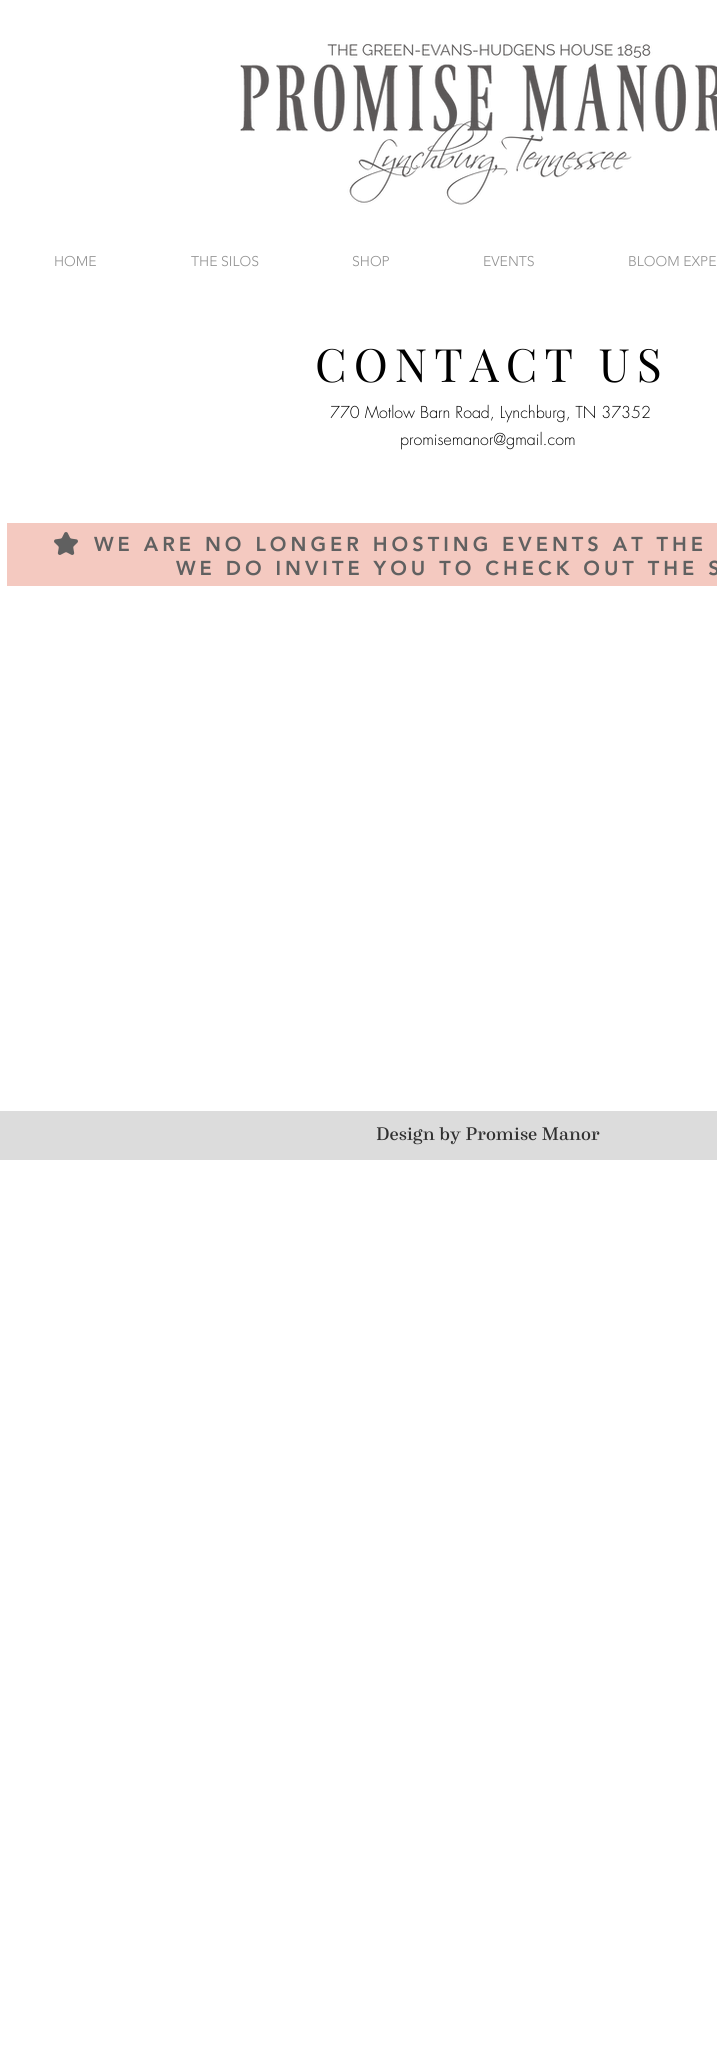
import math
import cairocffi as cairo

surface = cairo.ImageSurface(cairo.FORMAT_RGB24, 717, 2056)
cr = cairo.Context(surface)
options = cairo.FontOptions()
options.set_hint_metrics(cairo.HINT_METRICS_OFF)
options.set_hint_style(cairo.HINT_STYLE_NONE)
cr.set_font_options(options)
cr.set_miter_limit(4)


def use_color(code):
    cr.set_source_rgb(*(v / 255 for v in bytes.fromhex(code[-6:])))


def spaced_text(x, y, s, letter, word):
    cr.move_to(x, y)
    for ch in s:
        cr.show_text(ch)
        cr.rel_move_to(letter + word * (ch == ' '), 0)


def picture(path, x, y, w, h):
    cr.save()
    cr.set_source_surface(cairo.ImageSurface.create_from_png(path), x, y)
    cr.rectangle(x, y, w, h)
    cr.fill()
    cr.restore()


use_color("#ffffff")
cr.paint()
picture("img1.png", 240, 43, 477, 162)
cr.select_font_face("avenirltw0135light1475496 Light")
cr.set_font_size(14)
use_color("#909090")
cr.move_to(54, 266)
cr.show_text("HOME")
cr.move_to(191, 266)
cr.show_text("THE SILOS")
cr.move_to(352, 266)
cr.show_text("SHOP")
cr.move_to(483, 266)
cr.show_text("EVENTS")
cr.move_to(628, 266)
cr.show_text("BLOOM EXPE")
cr.select_font_face("Playfair Display")
cr.set_font_size(46)
use_color("#000000")
spaced_text(315, 382, "CONTACT US", 7, 0)
cr.select_font_face("futura Light")
cr.set_font_size(16)
cr.move_to(330, 418)
cr.show_text("770 Motlow Barn Road, Lynchburg, TN 37352")
cr.move_to(400, 445)
cr.show_text("promisemanor@gmail.com")
use_color("#f4c9c0")
cr.rectangle(7, 523, 710, 63)
cr.fill()
picture("img2.png", 54, 532, 24, 23)
cr.select_font_face("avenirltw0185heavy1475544 Black")
cr.set_font_size(20)
use_color("#606060")
spaced_text(94, 551, "WE ARE NO LONGER HOSTING EVENTS AT THE", 4, 0)
spaced_text(176, 575, "WE DO INVITE YOU TO CHECK OUT THE S", 4, 0)
use_color("#dcdcdc")
cr.rectangle(0, 1111, 717, 49)
cr.fill()
cr.select_font_face("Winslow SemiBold")
cr.set_font_size(19)
use_color("#303030")
cr.move_to(376, 1140)
cr.show_text("Design by Promise Manor")
surface.write_to_png("result.png")
